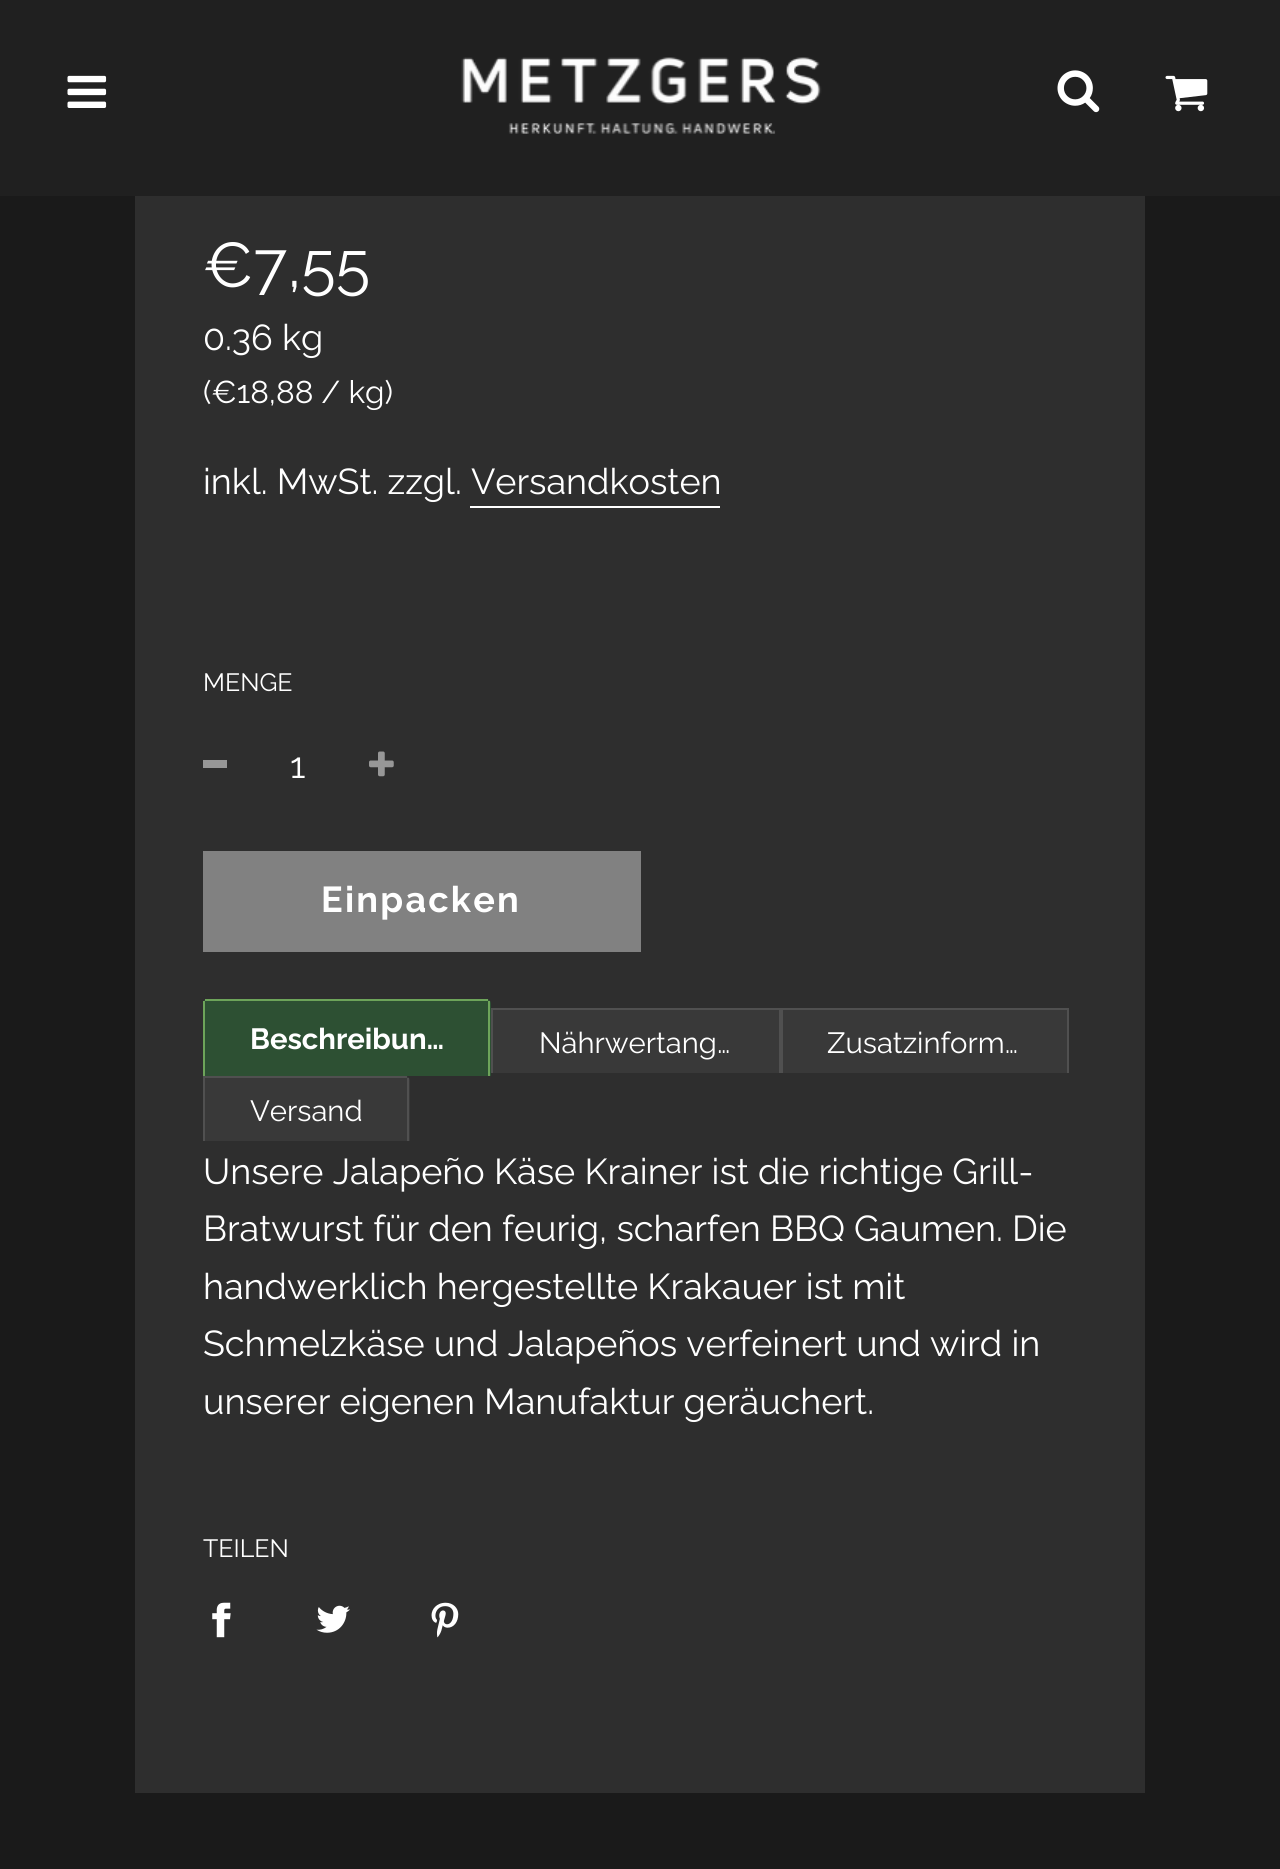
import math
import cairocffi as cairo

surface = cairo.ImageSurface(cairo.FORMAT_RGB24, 1280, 1869)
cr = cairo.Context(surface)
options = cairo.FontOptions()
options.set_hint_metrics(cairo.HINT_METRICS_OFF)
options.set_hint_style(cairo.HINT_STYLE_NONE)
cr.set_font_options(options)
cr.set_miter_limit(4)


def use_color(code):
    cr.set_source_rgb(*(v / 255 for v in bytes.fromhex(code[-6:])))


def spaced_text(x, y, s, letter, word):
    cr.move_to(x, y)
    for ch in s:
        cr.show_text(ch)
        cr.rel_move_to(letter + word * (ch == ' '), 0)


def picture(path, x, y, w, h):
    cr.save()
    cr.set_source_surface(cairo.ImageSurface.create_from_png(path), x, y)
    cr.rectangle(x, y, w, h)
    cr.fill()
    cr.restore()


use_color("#1a1a1a")
cr.paint()
use_color("#202020")
cr.rectangle(0, 0, 1280, 196)
cr.fill()
picture("img1.png", 67, 75, 40, 33)
picture("img2.png", 461, 57, 361, 77)
picture("img3.png", 1057, 70, 43, 43)
picture("img4.png", 1165, 75, 43, 37)
use_color("#2e2e2e")
cr.rectangle(135, 196, 1010, 1597)
cr.fill()
cr.select_font_face("Raleway")
cr.set_font_size(63)
use_color("#ffffff")
cr.move_to(203, 287)
cr.show_text("€7,55")
cr.set_font_size(36)
cr.move_to(203, 350)
cr.show_text("0.36 kg")
cr.set_font_size(31.5)
cr.move_to(203, 403)
cr.show_text("(€18,88 / kg)")
cr.set_font_size(36)
cr.move_to(203, 494)
cr.show_text("inkl. MwSt. zzgl. Versandkosten")
cr.rectangle(470, 506, 250, 2)
cr.fill()
cr.set_font_size(25)
cr.move_to(203, 691)
cr.show_text("MENGE")
use_color("#979797")
cr.rectangle(203, 760, 24, 8)
cr.fill()
cr.set_font_size(36)
use_color("#ffffff")
cr.move_to(290, 778)
cr.show_text("1")
picture("img5.png", 369, 751, 25, 26)
use_color("#818181")
cr.rectangle(203, 851, 438, 101)
cr.fill()
cr.select_font_face("Raleway", cairo.FONT_SLANT_NORMAL, cairo.FONT_WEIGHT_BOLD)
use_color("#ffffff")
spaced_text(321, 912, "Einpacken", 2.25, 0)
use_color("#2d5033")
cr.new_path()
cr.move_to(208, 999)
cr.line_to(486, 999)
cr.curve_to(489, 999, 491, 1001, 491, 1004)
cr.line_to(491, 1076)
cr.line_to(203, 1076)
cr.line_to(203, 1004)
cr.curve_to(203, 1001, 205, 999, 208, 999)
cr.close_path()
cr.fill()
use_color("#6da45a")
cr.rectangle(205, 999, 283, 2)
cr.fill()
cr.rectangle(488, 1001, 2, 75)
cr.fill()
cr.rectangle(203, 1001, 2, 75)
cr.fill()
cr.set_font_size(29.25)
use_color("#ffffff")
cr.move_to(250, 1049)
cr.show_text("Beschreibun…")
use_color("#393939")
cr.rectangle(493, 1010, 286, 63)
cr.fill()
use_color("#505050")
cr.rectangle(491, 1008, 578, 2)
cr.fill()
cr.rectangle(779, 1008, 4, 65)
cr.fill()
cr.rectangle(491, 1008, 2, 65)
cr.fill()
cr.select_font_face("Raleway")
use_color("#ffffff")
cr.move_to(539, 1053)
cr.show_text("Nährwertang…")
use_color("#393939")
cr.rectangle(783, 1010, 284, 63)
cr.fill()
use_color("#505050")
cr.rectangle(1067, 1008, 2, 65)
cr.fill()
use_color("#ffffff")
cr.move_to(827, 1053)
cr.show_text("Zusatzinform…")
use_color("#393939")
cr.new_path()
cr.move_to(203, 1076)
cr.line_to(405, 1076)
cr.curve_to(408, 1076, 410, 1078, 410, 1081)
cr.line_to(410, 1141)
cr.line_to(203, 1141)
cr.close_path()
cr.fill()
use_color("#505050")
cr.rectangle(203, 1076, 204, 2)
cr.fill()
cr.rectangle(407, 1078, 2, 63)
cr.fill()
cr.rectangle(203, 1076, 2, 65)
cr.fill()
use_color("#ffffff")
cr.move_to(250, 1121)
cr.show_text("Versand")
cr.set_font_size(36)
cr.move_to(203, 1184)
cr.show_text("Unsere Jalapeño Käse Krainer ist die richtige Grill-")
cr.move_to(203, 1241)
cr.show_text("Bratwurst für den feurig, scharfen BBQ Gaumen. Die")
cr.move_to(203, 1299)
cr.show_text("handwerklich hergestellte Krakauer ist mit")
cr.move_to(203, 1356)
cr.show_text("Schmelzkäse und Jalapeños verfeinert und wird in")
cr.move_to(203, 1414)
cr.show_text("unserer eigenen Manufaktur geräuchert.")
cr.set_font_size(25)
cr.move_to(203, 1557)
cr.show_text("TEILEN")
picture("img6.png", 212, 1602, 19, 36)
picture("img7.png", 316, 1605, 34, 28)
picture("img8.png", 431, 1602, 28, 36)
surface.write_to_png("result.png")
